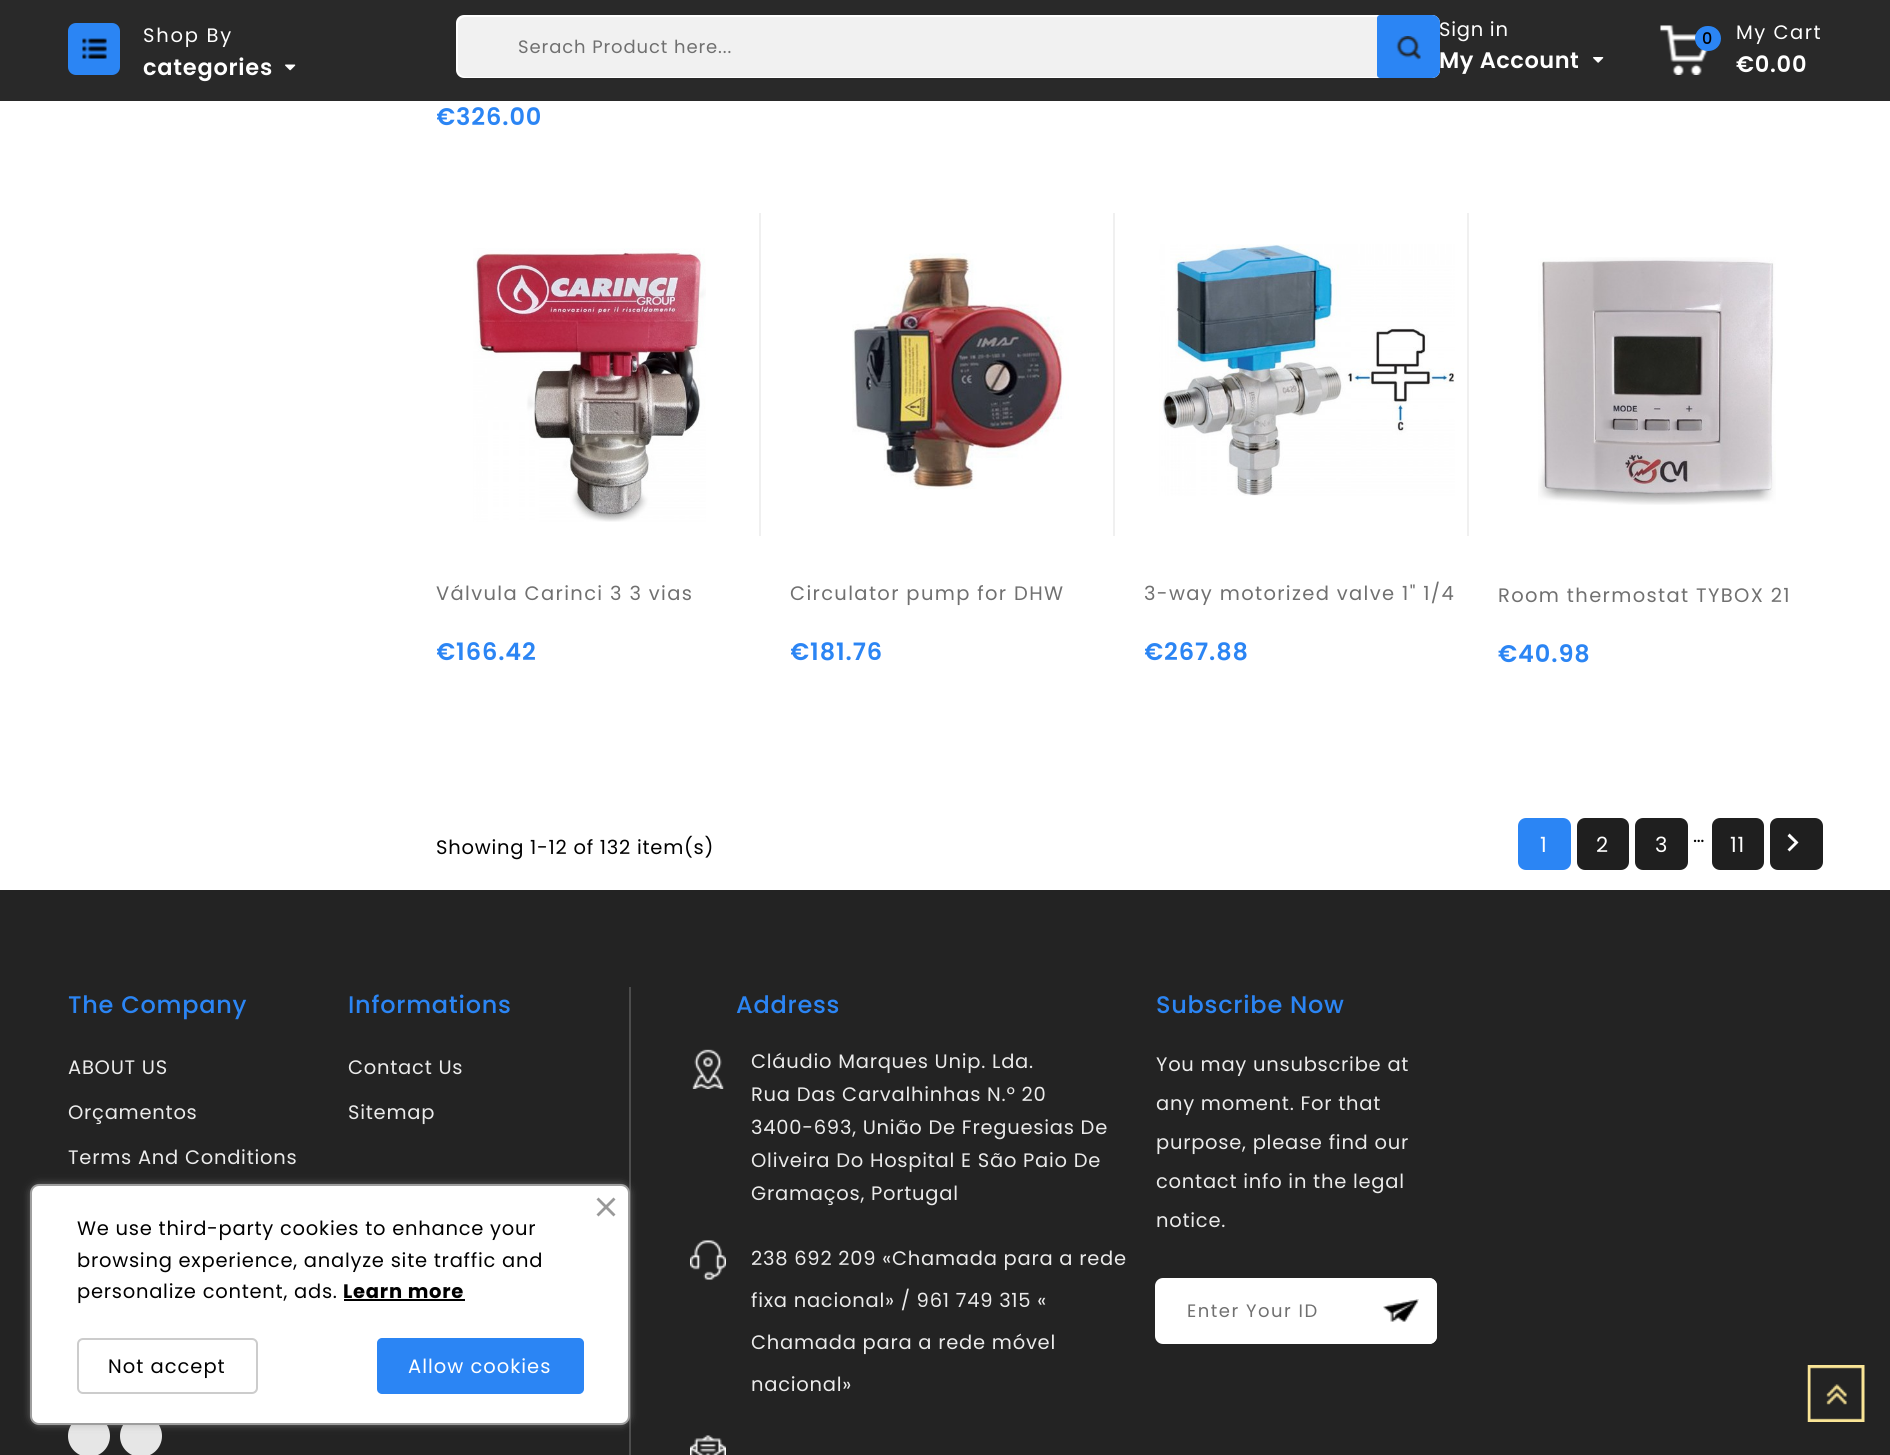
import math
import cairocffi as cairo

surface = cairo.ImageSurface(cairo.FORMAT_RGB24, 1890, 1455)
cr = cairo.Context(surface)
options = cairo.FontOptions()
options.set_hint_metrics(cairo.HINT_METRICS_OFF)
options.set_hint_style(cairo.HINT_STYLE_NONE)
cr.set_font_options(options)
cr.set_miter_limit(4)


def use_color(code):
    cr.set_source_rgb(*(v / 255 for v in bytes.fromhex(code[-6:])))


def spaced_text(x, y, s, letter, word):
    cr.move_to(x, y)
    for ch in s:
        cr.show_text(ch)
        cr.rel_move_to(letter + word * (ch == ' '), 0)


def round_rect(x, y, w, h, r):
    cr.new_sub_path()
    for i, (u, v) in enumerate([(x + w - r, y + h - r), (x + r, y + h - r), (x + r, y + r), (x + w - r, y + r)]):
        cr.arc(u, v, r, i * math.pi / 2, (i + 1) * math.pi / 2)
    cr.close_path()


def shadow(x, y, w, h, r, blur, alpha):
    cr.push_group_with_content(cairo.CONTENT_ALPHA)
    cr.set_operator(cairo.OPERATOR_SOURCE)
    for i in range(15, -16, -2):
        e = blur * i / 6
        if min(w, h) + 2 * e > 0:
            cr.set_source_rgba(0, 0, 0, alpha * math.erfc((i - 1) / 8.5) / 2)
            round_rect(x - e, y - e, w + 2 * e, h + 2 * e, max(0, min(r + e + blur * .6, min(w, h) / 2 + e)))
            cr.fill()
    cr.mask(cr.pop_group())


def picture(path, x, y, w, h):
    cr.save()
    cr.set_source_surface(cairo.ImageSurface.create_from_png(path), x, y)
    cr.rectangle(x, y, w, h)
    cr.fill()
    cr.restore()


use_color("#ffffff")
cr.paint()
use_color("#292929")
cr.rectangle(0, 0, 1890, 101)
cr.fill()
use_color("#2b85f4")
round_rect(68, 23, 52, 52, 8)
cr.fill()
picture("img1.png", 82, 38, 25, 21)
cr.select_font_face("Poppins")
cr.set_font_size(19.5)
use_color("#ffffff")
spaced_text(143, 42, "Shop By", 1.75, 0)
cr.select_font_face("Poppins SemiBold")
cr.set_font_size(22.5)
spaced_text(143, 75, "categories", 0.75, 0)
picture("img2.png", 285, 64, 11, 7)
round_rect(457, 16, 982, 61, 7)
cr.fill_preserve()
cr.stroke()
use_color("#f1f1f1")
round_rect(458, 17, 981, 60, 8)
cr.fill()
cr.select_font_face("Poppins")
cr.set_font_size(18)
use_color("#707070")
spaced_text(518, 53, "Serach Product here...", 0.9, 0)
use_color("#2b85f4")
cr.new_path()
cr.move_to(1380, 15)
cr.line_to(1432, 15)
cr.curve_to(1436.5, 15, 1440, 18.5, 1440, 23)
cr.line_to(1440, 70)
cr.curve_to(1440, 74.5, 1436.5, 78, 1432, 78)
cr.line_to(1380, 78)
cr.curve_to(1378.5, 78, 1377, 76.5, 1377, 75)
cr.line_to(1377, 18)
cr.curve_to(1377, 16.5, 1378.5, 15, 1380, 15)
cr.close_path()
cr.fill()
picture("img3.png", 1396, 36, 25, 24)
cr.set_font_size(19.5)
use_color("#ffffff")
spaced_text(1439, 36, "Sign in", 0.75, 0)
cr.select_font_face("Poppins SemiBold")
cr.set_font_size(22.5)
spaced_text(1439, 68, "My Account", 0.5, 0)
picture("img4.png", 1593, 57, 11, 6)
picture("img5.png", 1660, 25, 48, 50)
use_color("#2b85f4")
round_rect(1695, 26, 26, 25, 12.5)
cr.fill()
cr.select_font_face("Poppins Medium")
cr.set_font_size(16)
use_color("#000000")
spaced_text(1702, 44, "0", 0.75, 0)
cr.select_font_face("Poppins")
cr.set_font_size(19.5)
use_color("#ffffff")
spaced_text(1736, 39, "My Cart", 1.5, 0)
cr.select_font_face("Poppins SemiBold")
cr.set_font_size(22.5)
spaced_text(1736, 72, "€0.00", 0.75, 0)
cr.save()
cr.rectangle(437, 0, 324, 168)
cr.clip()
cr.set_font_size(24)
use_color("#2b85f4")
spaced_text(436, 125, "€326.00", 0.9, 0)
cr.restore()
use_color("#f0f0f0")
cr.rectangle(759, 213, 2, 323)
cr.fill()
picture("img6.png", 473, 248, 233, 274)
cr.select_font_face("Poppins")
cr.set_font_size(19.5)
use_color("#707070")
spaced_text(436, 600, "Válvula Carinci 3 3 vias", 1.35, 0)
cr.save()
cr.rectangle(437, 558, 324, 176)
cr.clip()
cr.select_font_face("Poppins SemiBold")
cr.set_font_size(24)
use_color("#2b85f4")
spaced_text(436, 660, "€166.42", 0.9, 0)
cr.restore()
use_color("#f0f0f0")
cr.rectangle(1113, 213, 2, 323)
cr.fill()
picture("img7.png", 852, 253, 217, 237)
use_color("#707070")
spaced_text(790, 600, "Circulator pump for DHW", 1.35, 0)
cr.save()
cr.rectangle(791, 558, 324, 176)
cr.clip()
cr.select_font_face("Poppins SemiBold")
cr.set_font_size(24)
use_color("#2b85f4")
spaced_text(790, 660, "€181.76", 0.9, 0)
cr.restore()
use_color("#f0f0f0")
cr.rectangle(1467, 213, 2, 323)
cr.fill()
picture("img8.png", 1159, 244, 296, 252)
use_color("#707070")
spaced_text(1144, 600, "3-way motorized valve 1\" 1/4", 1.35, 0)
cr.save()
cr.rectangle(1145, 558, 324, 176)
cr.clip()
cr.select_font_face("Poppins SemiBold")
cr.set_font_size(24)
use_color("#2b85f4")
spaced_text(1144, 660, "€267.88", 0.9, 0)
cr.restore()
picture("img9.png", 1538, 257, 238, 248)
spaced_text(1498, 602, "Room thermostat TYBOX 21", 1.35, 0)
cr.select_font_face("Poppins SemiBold")
cr.set_font_size(24)
use_color("#2b85f4")
spaced_text(1498, 662, "€40.98", 0.9, 0)
cr.select_font_face("Poppins")
cr.set_font_size(19.5)
use_color("#000000")
spaced_text(436, 854, "Showing 1-12 of 132 item(s)", 0.75, 0)
use_color("#2b85f4")
round_rect(1519, 819, 51, 50, 7)
cr.fill_preserve()
cr.stroke()
cr.set_font_size(21)
use_color("#ffffff")
spaced_text(1540, 852, "1", 0.75, 0)
use_color("#1f1f1f")
round_rect(1578, 819, 50, 50, 7)
cr.fill_preserve()
cr.stroke()
use_color("#ffffff")
spaced_text(1596, 852, "2", 0.75, 0)
use_color("#1f1f1f")
round_rect(1636, 819, 51, 50, 7)
cr.fill_preserve()
cr.stroke()
use_color("#ffffff")
spaced_text(1655, 852, "3", 0.75, 0)
cr.set_font_size(19.5)
use_color("#000000")
spaced_text(1693, 842, "…", 0.75, 0)
use_color("#1f1f1f")
round_rect(1713, 819, 50, 50, 7)
cr.fill_preserve()
cr.stroke()
cr.set_font_size(21)
use_color("#ffffff")
spaced_text(1730, 852, "11", 0.75, 0)
use_color("#1f1f1f")
round_rect(1771, 819, 51, 50, 7)
cr.fill_preserve()
cr.stroke()
use_color("#ffffff")
cr.new_path()
cr.move_to(1787.5, 849.5)
cr.line_to(1794.5, 842.5)
cr.line_to(1787.5, 836)
cr.line_to(1789.5, 833.5)
cr.line_to(1798.5, 842.5)
cr.line_to(1789.5, 851.5)
cr.close_path()
cr.fill()
use_color("#232323")
cr.rectangle(0, 890, 1890, 565)
cr.fill()
cr.select_font_face("Poppins Medium")
cr.set_font_size(24)
use_color("#2b85f4")
spaced_text(68, 1013, "The Company", 0.75, 0)
cr.select_font_face("Poppins")
cr.set_font_size(19.5)
use_color("#ebebeb")
spaced_text(68, 1074, "ABOUT US", 0.75, 0)
spaced_text(68, 1119, "Orçamentos", 0.75, 0)
spaced_text(68, 1164, "Terms And Conditions", 0.75, 0)
cr.select_font_face("Poppins Medium")
cr.set_font_size(24)
use_color("#2b85f4")
spaced_text(348, 1013, "Informations", 0.75, 0)
cr.select_font_face("Poppins")
cr.set_font_size(19.5)
use_color("#ebebeb")
spaced_text(348, 1074, "Contact Us", 0.75, 0)
spaced_text(348, 1119, "Sitemap", 0.75, 0)
use_color("#4c4c4c")
cr.rectangle(629, 987, 2, 468)
cr.fill()
cr.select_font_face("Poppins Medium")
cr.set_font_size(24)
use_color("#2b85f4")
spaced_text(736, 1013, "Address", 0.75, 0)
picture("img10.png", 692, 1049, 32, 40)
cr.select_font_face("Poppins")
cr.set_font_size(19.5)
use_color("#ebebeb")
spaced_text(751, 1068, "Cláudio Marques Unip. Lda.", 0.75, 0)
spaced_text(751, 1101, "Rua Das Carvalhinhas N.º 20", 0.75, 0)
spaced_text(751, 1134, "3400-693, União De Freguesias De", 0.75, 0)
spaced_text(751, 1167, "Oliveira Do Hospital E São Paio De", 0.75, 0)
spaced_text(751, 1200, "Gramaços, Portugal", 0.75, 0)
picture("img11.png", 690, 1240, 36, 40)
spaced_text(751, 1265, "238 692 209 «Chamada para a rede", 0.75, 0)
spaced_text(751, 1307, "fixa nacional» / 961 749 315 «", 0.75, 0)
spaced_text(751, 1349, "Chamada para a rede móvel", 0.75, 0)
spaced_text(751, 1391, "nacional»", 0.75, 0)
picture("img12.png", 690, 1435, 36, 20)
cr.select_font_face("Poppins Medium")
cr.set_font_size(24)
use_color("#2b85f4")
spaced_text(1156, 1013, "Subscribe Now", 0.75, 0)
cr.select_font_face("Poppins")
cr.set_font_size(19.5)
use_color("#ebebeb")
spaced_text(1156, 1071, "You may unsubscribe at", 0.75, 0)
spaced_text(1156, 1110, "any moment. For that", 0.75, 0)
spaced_text(1156, 1149, "purpose, please find our", 0.75, 0)
spaced_text(1156, 1188, "contact info in the legal", 0.75, 0)
spaced_text(1156, 1227, "notice.", 0.75, 0)
use_color("#ffffff")
round_rect(1156, 1279, 280, 64, 7)
cr.fill_preserve()
cr.stroke()
cr.set_font_size(18)
use_color("#707070")
spaced_text(1187, 1317, "Enter Your ID", 1.5, 0)
use_color("#ffffff")
cr.new_path()
cr.move_to(1370, 1278)
cr.line_to(1429, 1278)
cr.curve_to(1433.5, 1278, 1437, 1281.5, 1437, 1286)
cr.line_to(1437, 1336)
cr.curve_to(1437, 1340.5, 1433.5, 1344, 1429, 1344)
cr.line_to(1370, 1344)
cr.close_path()
cr.fill()
picture("img13.png", 1383, 1299, 36, 23)
use_color("#e6e6e6")
cr.arc(89, 1436, 21, 0, 2 * math.pi)
cr.fill()
cr.arc(141, 1436, 21, 0, 2 * math.pi)
cr.fill()
picture("img14.png", 1807, 1365, 58, 57)
use_color("#9e9e9e")
shadow(33, 1187, 594, 235, 6, 5, 1)
use_color("#ffffff")
round_rect(31, 1185, 598, 239, 8)
cr.fill_preserve()
use_color("#9e9e9e")
cr.stroke()
use_color("#999999")
cr.new_path()
cr.move_to(596.5, 1214.5)
cr.line_to(613.5, 1197.5)
cr.line_to(615.5, 1199.5)
cr.line_to(598.5, 1216.5)
cr.close_path()
cr.fill()
cr.new_path()
cr.move_to(598.5, 1197.5)
cr.line_to(615.5, 1214.5)
cr.line_to(613.5, 1216.5)
cr.line_to(596.5, 1199.5)
cr.close_path()
cr.fill()
cr.set_font_size(19.5)
use_color("#000000")
spaced_text(77, 1235, "We use third-party cookies to enhance your", 0.75, 0)
spaced_text(77, 1267, "browsing experience, analyze site traffic and", 0.75, 0)
spaced_text(77, 1298, "personalize content, ads.", 0.75, 0)
cr.select_font_face("Poppins", cairo.FONT_SLANT_NORMAL, cairo.FONT_WEIGHT_BOLD)
spaced_text(343, 1298, "Learn more", 0.75, 0)
cr.rectangle(344, 1299, 121, 2)
cr.fill()
round_rect(78, 1339, 179, 54, 5)
use_color("#cccccc")
cr.stroke()
cr.select_font_face("Poppins")
use_color("#000000")
spaced_text(108, 1373, "Not accept", 1, 0)
use_color("#2b85f4")
round_rect(378, 1339, 205, 54, 4)
cr.fill_preserve()
cr.stroke()
use_color("#ffffff")
spaced_text(408, 1373, "Allow cookies", 1, 0)
surface.write_to_png("result.png")
